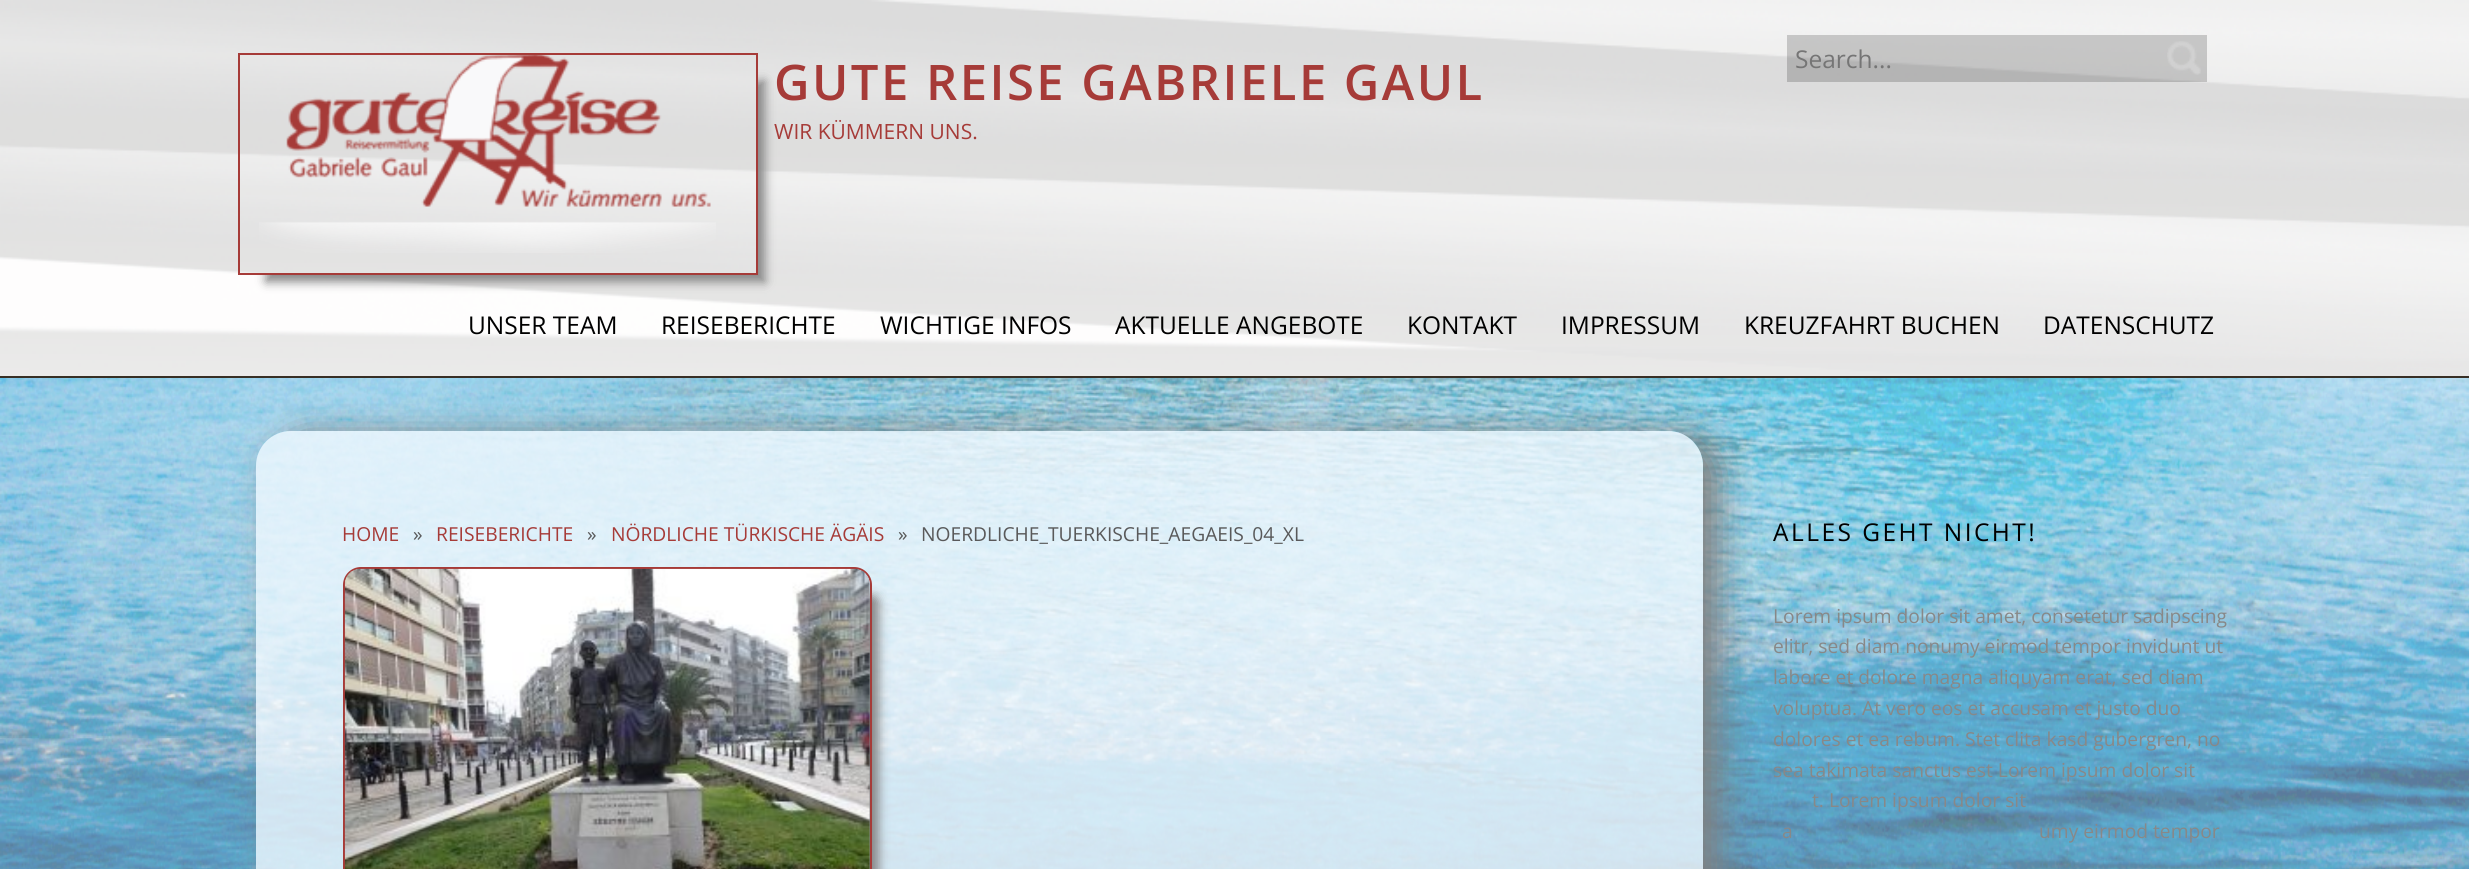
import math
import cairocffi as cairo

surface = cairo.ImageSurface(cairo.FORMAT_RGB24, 2469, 869)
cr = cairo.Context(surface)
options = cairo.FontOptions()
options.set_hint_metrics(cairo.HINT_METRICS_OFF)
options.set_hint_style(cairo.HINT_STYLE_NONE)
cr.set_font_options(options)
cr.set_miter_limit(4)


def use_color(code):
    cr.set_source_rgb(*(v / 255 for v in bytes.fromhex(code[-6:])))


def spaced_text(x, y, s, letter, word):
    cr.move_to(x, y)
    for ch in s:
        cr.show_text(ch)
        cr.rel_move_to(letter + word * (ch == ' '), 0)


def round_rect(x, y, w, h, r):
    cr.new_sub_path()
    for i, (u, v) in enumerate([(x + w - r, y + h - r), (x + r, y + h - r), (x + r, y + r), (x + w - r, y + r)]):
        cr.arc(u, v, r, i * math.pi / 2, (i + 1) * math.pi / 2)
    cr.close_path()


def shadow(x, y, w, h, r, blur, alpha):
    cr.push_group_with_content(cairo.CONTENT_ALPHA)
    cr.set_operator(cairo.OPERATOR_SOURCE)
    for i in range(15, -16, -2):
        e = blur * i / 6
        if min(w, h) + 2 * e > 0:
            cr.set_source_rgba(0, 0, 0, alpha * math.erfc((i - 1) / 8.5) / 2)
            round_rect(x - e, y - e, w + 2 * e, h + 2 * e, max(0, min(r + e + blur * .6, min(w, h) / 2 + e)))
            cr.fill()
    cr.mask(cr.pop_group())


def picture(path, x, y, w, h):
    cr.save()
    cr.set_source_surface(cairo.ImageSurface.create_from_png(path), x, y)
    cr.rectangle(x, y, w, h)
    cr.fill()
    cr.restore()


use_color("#ffffff")
cr.paint()
picture("img1.png", 0, 378, 2469, 491)
picture("img2.png", 0, 0, 2469, 376)
use_color("#382f25")
cr.rectangle(0, 376, 2469, 2)
cr.fill()
cr.set_source_rgba(0, 0, 0, 0.18)
cr.rectangle(1787, 35, 420, 47)
cr.fill()
cr.select_font_face("Open Sans")
cr.set_font_size(24.5)
use_color("#757575")
cr.move_to(1795, 68)
cr.show_text("Search...")
picture("img3.png", 2167, 41, 34, 34)
cr.save()
cr.set_fill_rule(cairo.FILL_RULE_EVEN_ODD)
cr.new_path()
cr.move_to(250, 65)
cr.line_to(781, 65)
cr.line_to(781, 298)
cr.line_to(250, 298)
cr.close_path()
cr.move_to(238, 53)
cr.line_to(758, 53)
cr.line_to(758, 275)
cr.line_to(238, 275)
cr.close_path()
cr.clip()
use_color("#888888")
shadow(266, 81, 499, 201, 0, 5, 1)
cr.restore()
cr.rectangle(239, 54, 518, 220)
use_color("#a63b38")
cr.stroke()
picture("img4.png", 259, 55, 457, 198)
cr.select_font_face("Open Sans SemiBold")
cr.set_font_size(49)
spaced_text(774, 100, "GUTE REISE GABRIELE GAUL", 2.45, 0)
cr.select_font_face("Open Sans")
cr.set_font_size(21)
cr.move_to(774, 139)
cr.show_text("WIR KÜMMERN UNS.")
cr.set_font_size(24.5)
use_color("#000000")
cr.move_to(468, 334)
cr.show_text("UNSER TEAM")
cr.move_to(661, 334)
cr.show_text("REISEBERICHTE")
cr.move_to(880, 334)
cr.show_text("WICHTIGE INFOS")
cr.move_to(1115, 334)
cr.show_text("AKTUELLE ANGEBOTE")
cr.move_to(1407, 334)
cr.show_text("KONTAKT")
cr.move_to(1561, 334)
cr.show_text("IMPRESSUM")
cr.move_to(1744, 334)
cr.show_text("KREUZFAHRT BUCHEN")
cr.move_to(2043, 334)
cr.show_text("DATENSCHUTZ")
cr.save()
cr.set_fill_rule(cairo.FILL_RULE_EVEN_ODD)
cr.new_path()
cr.move_to(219, 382)
cr.line_to(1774, 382)
cr.line_to(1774, 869)
cr.line_to(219, 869)
cr.close_path()
cr.move_to(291, 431)
cr.line_to(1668, 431)
cr.curve_to(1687.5, 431, 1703, 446.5, 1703, 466)
cr.line_to(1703, 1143)
cr.curve_to(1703, 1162.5, 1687.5, 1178, 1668, 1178)
cr.line_to(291, 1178)
cr.curve_to(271.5, 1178, 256, 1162.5, 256, 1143)
cr.line_to(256, 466)
cr.curve_to(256, 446.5, 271.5, 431, 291, 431)
cr.close_path()
cr.clip()
use_color("#808080")
shadow(273, 436, 1447, 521, 35, 17.5, 1)
cr.restore()
cr.set_source_rgba(0.941, 0.973, 1, 0.8)
round_rect(256, 431, 1447, 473, 35)
cr.fill()
cr.set_font_size(19.25)
use_color("#a63b38")
cr.move_to(342, 541)
cr.show_text("HOME")
use_color("#59595a")
cr.move_to(413, 541)
cr.show_text("»")
use_color("#a63b38")
cr.move_to(436, 541)
cr.show_text("REISEBERICHTE")
use_color("#59595a")
cr.move_to(587, 541)
cr.show_text("»")
use_color("#a63b38")
cr.move_to(611, 541)
cr.show_text("NÖRDLICHE TÜRKISCHE ÄGÄIS")
use_color("#59595a")
cr.move_to(898, 541)
cr.show_text("»")
cr.move_to(921, 541)
cr.show_text("NOERDLICHE_TUERKISCHE_AEGAEIS_04_XL")
use_color("#888888")
shadow(371, 595, 508, 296, 7, 5, 1)
round_rect(344, 568, 527, 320, 17)
use_color("#a63b38")
cr.stroke()
picture("img5.png", 344, 568, 526, 301)
cr.set_font_size(24.5)
use_color("#000000")
spaced_text(1773, 541, "ALLES GEHT NICHT!", 2.45, 0)
cr.set_font_size(19.25)
use_color("#888888")
cr.move_to(1773, 623)
cr.show_text("Lorem ipsum dolor sit amet, consetetur sadipscing")
cr.move_to(1773, 653)
cr.show_text("elitr, sed diam nonumy eirmod tempor invidunt ut")
cr.move_to(1773, 684)
cr.show_text("labore et dolore magna aliquyam erat, sed diam")
cr.move_to(1773, 715)
cr.show_text("voluptua. At vero eos et accusam et justo duo")
cr.move_to(1773, 746)
cr.show_text("dolores et ea rebum. Stet clita kasd gubergren, no")
cr.move_to(1773, 777)
cr.show_text("sea takimata sanctus est Lorem ipsum dolor sit")
cr.move_to(1812, 807)
cr.show_text("t. Lorem ipsum dolor sit")
cr.move_to(1782, 838)
cr.show_text("a")
cr.move_to(2039, 838)
cr.show_text("umy eirmod tempor")
surface.write_to_png("result.png")
